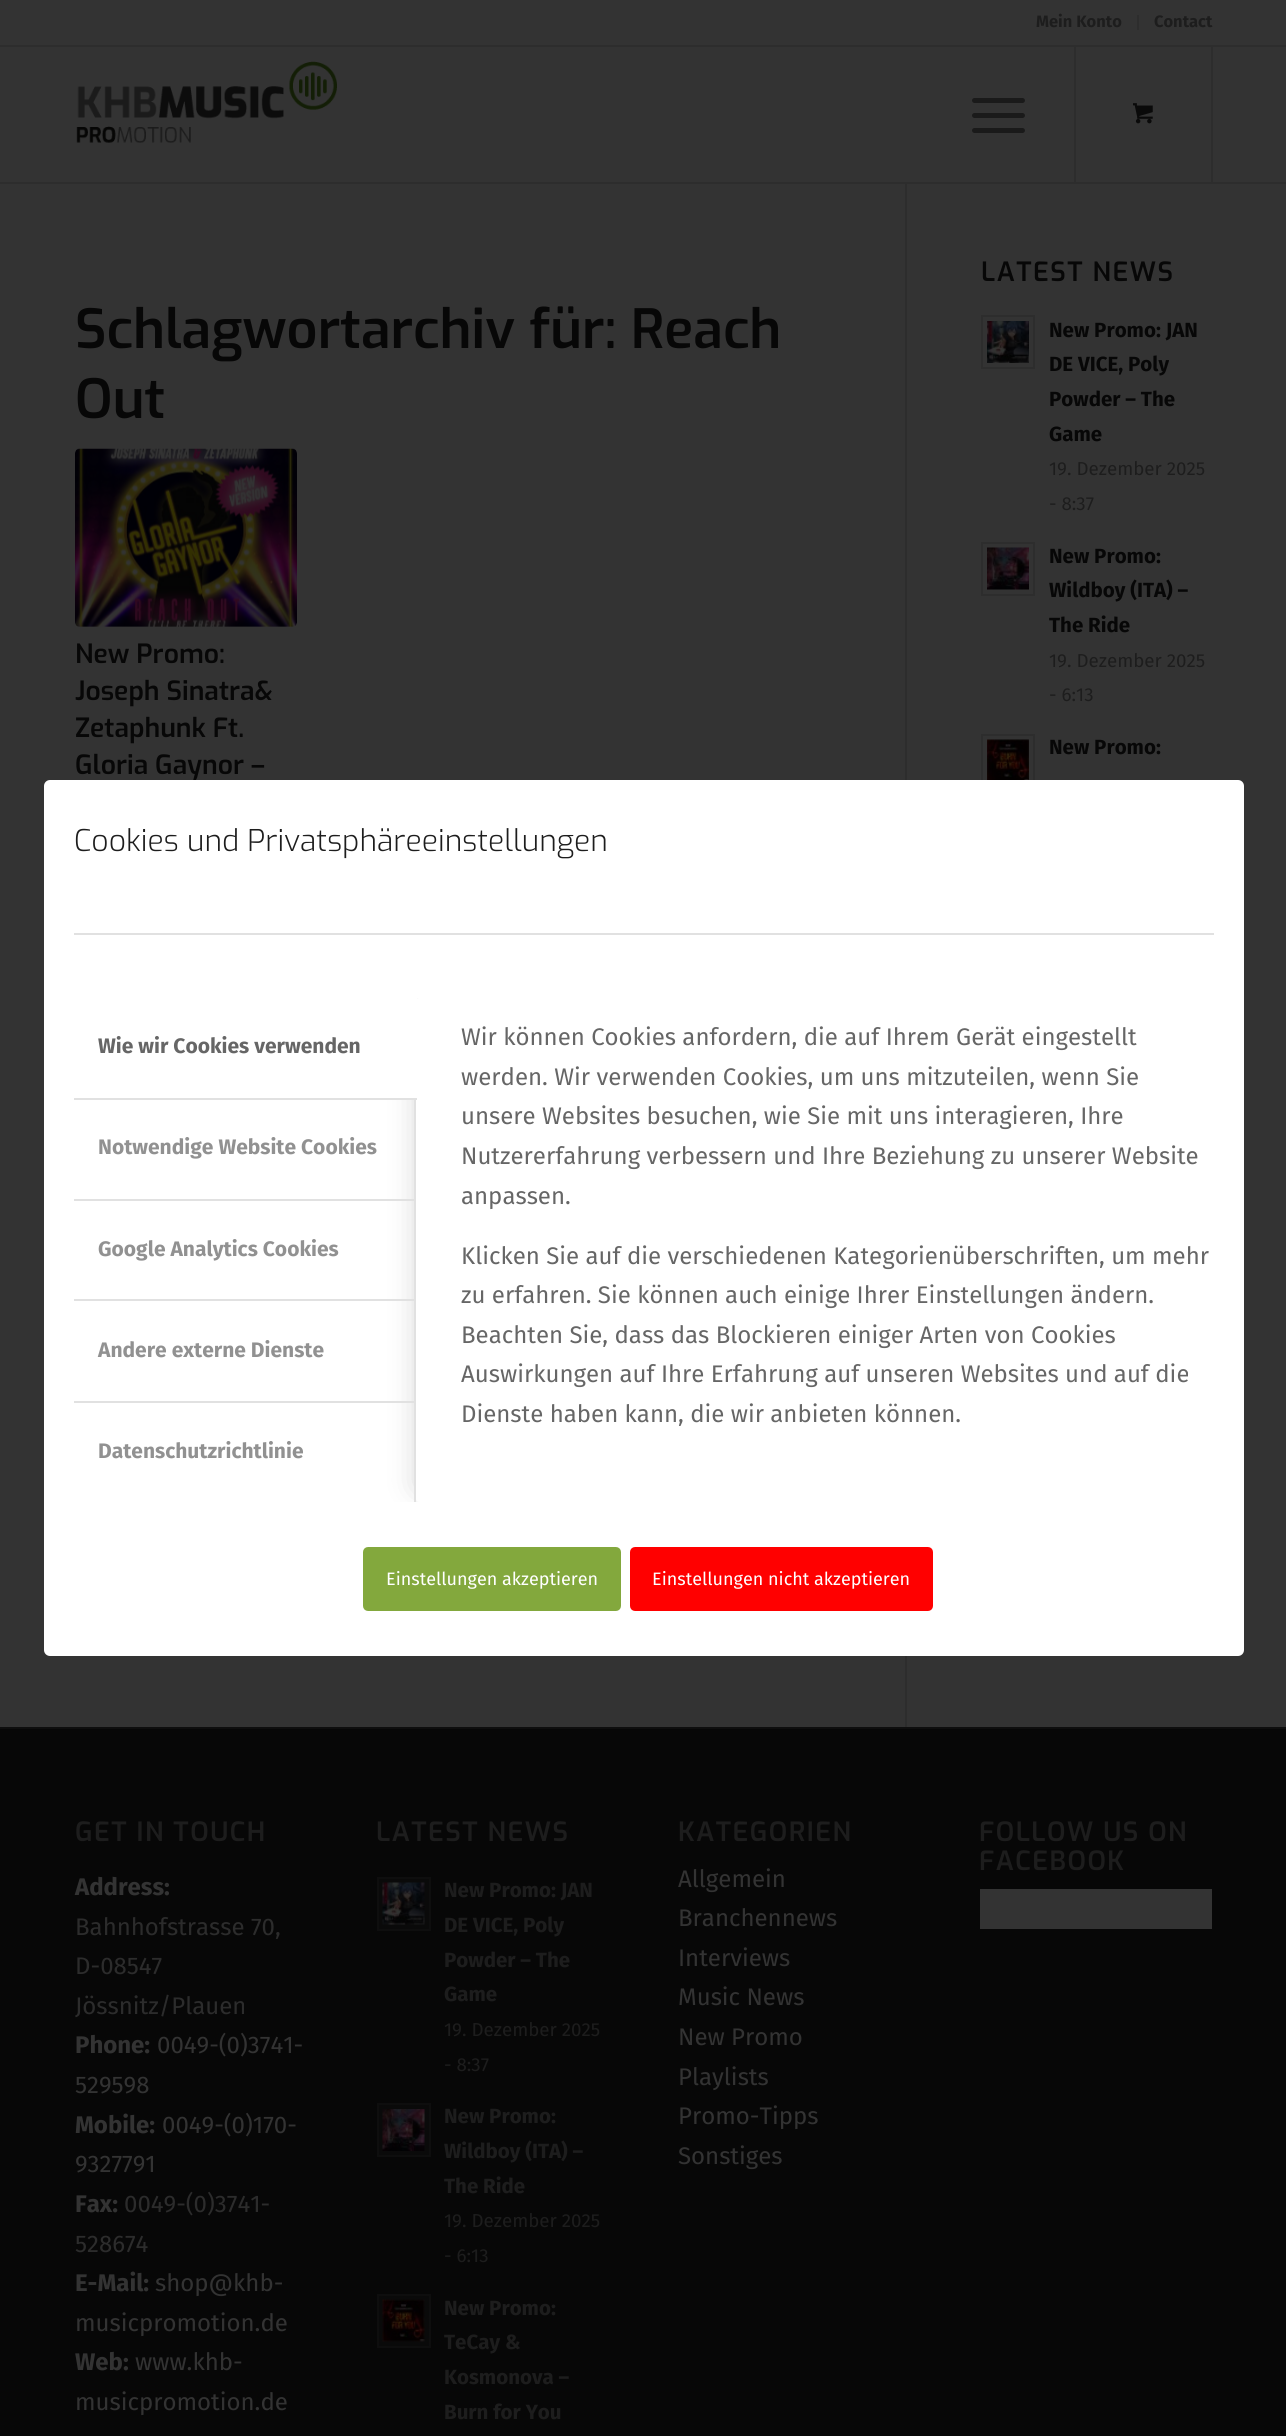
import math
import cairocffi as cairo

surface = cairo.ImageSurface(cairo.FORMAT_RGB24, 1286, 2436)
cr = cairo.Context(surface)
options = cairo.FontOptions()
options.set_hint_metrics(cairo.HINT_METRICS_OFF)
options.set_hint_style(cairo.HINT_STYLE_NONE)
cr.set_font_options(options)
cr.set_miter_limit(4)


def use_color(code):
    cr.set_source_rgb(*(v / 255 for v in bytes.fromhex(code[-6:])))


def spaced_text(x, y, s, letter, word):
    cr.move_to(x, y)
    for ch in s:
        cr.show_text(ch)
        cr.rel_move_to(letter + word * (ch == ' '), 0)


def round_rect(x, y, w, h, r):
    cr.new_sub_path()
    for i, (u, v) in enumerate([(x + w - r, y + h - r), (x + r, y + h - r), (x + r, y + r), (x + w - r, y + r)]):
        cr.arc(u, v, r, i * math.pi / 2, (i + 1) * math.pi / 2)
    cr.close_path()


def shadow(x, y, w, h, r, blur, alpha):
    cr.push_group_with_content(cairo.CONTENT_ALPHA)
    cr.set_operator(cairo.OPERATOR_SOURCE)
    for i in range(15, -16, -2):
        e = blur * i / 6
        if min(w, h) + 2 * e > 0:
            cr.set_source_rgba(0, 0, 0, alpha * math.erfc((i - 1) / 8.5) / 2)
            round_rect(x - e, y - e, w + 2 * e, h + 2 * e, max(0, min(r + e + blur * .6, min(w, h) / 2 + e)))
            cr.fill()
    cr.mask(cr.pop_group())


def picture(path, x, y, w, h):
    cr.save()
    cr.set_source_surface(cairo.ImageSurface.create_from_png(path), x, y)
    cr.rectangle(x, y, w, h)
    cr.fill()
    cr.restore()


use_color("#333333")
cr.paint()
use_color("#2d2d2d")
cr.rectangle(0, 45, 1286, 2)
cr.fill()
cr.rectangle(1137, 15, 2, 15)
cr.fill()
cr.select_font_face("Fira Sans", cairo.FONT_SLANT_NORMAL, cairo.FONT_WEIGHT_BOLD)
cr.set_font_size(16.5)
use_color("#1d1d1d")
cr.move_to(1036, 27)
cr.show_text("Mein Konto")
cr.move_to(1154, 27)
cr.show_text("Contact")
use_color("#2d2d2d")
cr.rectangle(905, 183, 2, 1544)
cr.fill()
cr.rectangle(0, 182, 1286, 2)
cr.fill()
picture("img1.png", 76, 61, 261, 82)
use_color("#1a1a1a")
round_rect(972, 113, 53, 5, 2.5)
cr.fill()
round_rect(972, 98, 53, 5, 2.5)
cr.fill()
round_rect(972, 128, 53, 5, 2.5)
cr.fill()
use_color("#2d2d2d")
cr.rectangle(1211, 47, 2, 136)
cr.fill()
cr.rectangle(1074, 47, 2, 136)
cr.fill()
picture("img2.png", 1133, 103, 20, 21)
cr.select_font_face("Exo SemiBold")
cr.set_font_size(54)
use_color("#070707")
cr.move_to(75, 348)
cr.show_text("Schlagwortarchiv für: Reach")
cr.move_to(75, 418)
cr.show_text("Out")
picture("img3.png", 75, 448, 222, 179)
cr.set_font_size(26.5)
cr.move_to(75, 663)
cr.show_text("New Promo:")
cr.move_to(75, 700)
cr.show_text("Joseph Sinatra&")
cr.move_to(75, 737)
cr.show_text("Zetaphunk Ft.")
cr.move_to(75, 774)
cr.show_text("Gloria Gaynor –")
spaced_text(981, 281, "LATEST NEWS", 1.5, 0)
cr.rectangle(982, 316, 52, 52)
use_color("#2d2d2d")
cr.stroke()
picture("img4.png", 987, 321, 42, 42)
cr.select_font_face("Fira Sans", cairo.FONT_SLANT_NORMAL, cairo.FONT_WEIGHT_BOLD)
cr.set_font_size(20.5)
use_color("#070707")
cr.move_to(1049, 337)
cr.show_text("New Promo: JAN")
cr.move_to(1049, 371)
cr.show_text("DE VICE, Poly")
cr.move_to(1049, 406)
cr.show_text("Powder – The")
cr.move_to(1049, 441)
cr.show_text("Game")
cr.select_font_face("Fira Sans")
cr.set_font_size(18.75)
use_color("#1d1d1d")
cr.move_to(1049, 475)
cr.show_text("19. Dezember 2025")
cr.move_to(1049, 510)
cr.show_text("- 8:37")
cr.rectangle(982, 543, 52, 52)
use_color("#2d2d2d")
cr.stroke()
picture("img5.png", 987, 547, 42, 43)
cr.select_font_face("Fira Sans", cairo.FONT_SLANT_NORMAL, cairo.FONT_WEIGHT_BOLD)
cr.set_font_size(20.5)
use_color("#070707")
cr.move_to(1049, 563)
cr.show_text("New Promo:")
cr.move_to(1049, 597)
cr.show_text("Wildboy (ITA) –")
cr.move_to(1049, 632)
cr.show_text("The Ride")
cr.select_font_face("Fira Sans")
cr.set_font_size(18.75)
use_color("#1d1d1d")
cr.move_to(1049, 667)
cr.show_text("19. Dezember 2025")
cr.move_to(1049, 701)
cr.show_text("- 6:13")
cr.rectangle(982, 735, 52, 52)
use_color("#2d2d2d")
cr.stroke()
picture("img6.png", 987, 739, 42, 41)
cr.select_font_face("Fira Sans", cairo.FONT_SLANT_NORMAL, cairo.FONT_WEIGHT_BOLD)
cr.set_font_size(20.5)
use_color("#070707")
cr.move_to(1049, 754)
cr.show_text("New Promo:")
cr.rectangle(0, 1729, 1286, 707)
cr.fill()
use_color("#0e0e0e")
cr.rectangle(0, 1727, 1286, 2)
cr.fill()
cr.select_font_face("Exo SemiBold")
cr.set_font_size(26.5)
use_color("#1d1d1d")
spaced_text(75, 1841, "GET IN TOUCH", 1.5, 0)
cr.select_font_face("Fira Sans", cairo.FONT_SLANT_NORMAL, cairo.FONT_WEIGHT_BOLD)
cr.set_font_size(24)
use_color("#333333")
cr.move_to(75, 1895)
cr.show_text("Address:")
cr.select_font_face("Fira Sans")
use_color("#2c2c2c")
cr.move_to(75, 1935)
cr.show_text("Bahnhofstrasse 70,")
cr.move_to(75, 1974)
cr.show_text("D-08547")
cr.move_to(75, 2014)
cr.show_text("Jössnitz/Plauen")
cr.select_font_face("Fira Sans", cairo.FONT_SLANT_NORMAL, cairo.FONT_WEIGHT_BOLD)
use_color("#333333")
cr.move_to(75, 2053)
cr.show_text("Phone:")
cr.select_font_face("Fira Sans")
cr.move_to(157, 2053)
cr.show_text("0049-(0)3741-")
cr.move_to(75, 2093)
cr.show_text("529598")
cr.select_font_face("Fira Sans", cairo.FONT_SLANT_NORMAL, cairo.FONT_WEIGHT_BOLD)
cr.move_to(75, 2133)
cr.show_text("Mobile:")
cr.select_font_face("Fira Sans")
cr.move_to(162, 2133)
cr.show_text("0049-(0)170-")
cr.move_to(75, 2172)
cr.show_text("9327791")
cr.select_font_face("Fira Sans", cairo.FONT_SLANT_NORMAL, cairo.FONT_WEIGHT_BOLD)
cr.move_to(75, 2212)
cr.show_text("Fax:")
cr.select_font_face("Fira Sans")
use_color("#2c2c2c")
cr.move_to(124, 2212)
cr.show_text("0049-(0)3741-")
cr.move_to(75, 2252)
cr.show_text("528674")
cr.select_font_face("Fira Sans", cairo.FONT_SLANT_NORMAL, cairo.FONT_WEIGHT_BOLD)
use_color("#333333")
cr.move_to(75, 2291)
cr.show_text("E-Mail:")
cr.select_font_face("Fira Sans")
cr.move_to(155, 2291)
cr.show_text("shop@khb-")
cr.move_to(75, 2331)
cr.show_text("musicpromotion.de")
cr.select_font_face("Fira Sans", cairo.FONT_SLANT_NORMAL, cairo.FONT_WEIGHT_BOLD)
cr.move_to(75, 2370)
cr.show_text("Web:")
cr.select_font_face("Fira Sans")
cr.move_to(135, 2370)
cr.show_text("www.khb-")
cr.move_to(75, 2410)
cr.show_text("musicpromotion.de")
cr.select_font_face("Exo SemiBold")
cr.set_font_size(26.5)
use_color("#1d1d1d")
spaced_text(376, 1841, "LATEST NEWS", 1.5, 0)
use_color("#0a0a0a")
cr.rectangle(378, 1878, 52, 52)
cr.fill_preserve()
use_color("#0e0e0e")
cr.stroke()
picture("img7.png", 382, 1882, 43, 43)
cr.select_font_face("Fira Sans", cairo.FONT_SLANT_NORMAL, cairo.FONT_WEIGHT_BOLD)
cr.set_font_size(20.5)
use_color("#1d1d1d")
cr.move_to(444, 1897)
cr.show_text("New Promo: JAN")
cr.move_to(444, 1932)
cr.show_text("DE VICE, Poly")
cr.move_to(444, 1967)
cr.show_text("Powder – The")
cr.move_to(444, 2001)
cr.show_text("Game")
cr.select_font_face("Fira Sans")
cr.set_font_size(18.75)
cr.move_to(444, 2036)
cr.show_text("19. Dezember 2025")
cr.move_to(444, 2071)
cr.show_text("- 8:37")
use_color("#0a0a0a")
cr.rectangle(378, 2104, 52, 52)
cr.fill_preserve()
use_color("#0e0e0e")
cr.stroke()
picture("img8.png", 382, 2109, 43, 42)
cr.select_font_face("Fira Sans", cairo.FONT_SLANT_NORMAL, cairo.FONT_WEIGHT_BOLD)
cr.set_font_size(20.5)
use_color("#1d1d1d")
cr.move_to(444, 2123)
cr.show_text("New Promo:")
cr.move_to(444, 2158)
cr.show_text("Wildboy (ITA) –")
cr.move_to(444, 2193)
cr.show_text("The Ride")
cr.select_font_face("Fira Sans")
cr.set_font_size(18.75)
cr.move_to(444, 2227)
cr.show_text("19. Dezember 2025")
cr.move_to(444, 2262)
cr.show_text("- 6:13")
use_color("#0a0a0a")
cr.rectangle(378, 2295, 52, 52)
cr.fill_preserve()
use_color("#0e0e0e")
cr.stroke()
picture("img9.png", 382, 2299, 43, 43)
cr.select_font_face("Fira Sans", cairo.FONT_SLANT_NORMAL, cairo.FONT_WEIGHT_BOLD)
cr.set_font_size(20.5)
use_color("#1d1d1d")
cr.move_to(444, 2315)
cr.show_text("New Promo:")
cr.move_to(444, 2349)
cr.show_text("TeCay &")
cr.move_to(444, 2384)
cr.show_text("Kosmonova –")
cr.move_to(444, 2419)
cr.show_text("Burn for You")
cr.select_font_face("Exo SemiBold")
cr.set_font_size(26.5)
spaced_text(678, 1841, "KATEGORIEN", 1.5, 0)
cr.select_font_face("Fira Sans")
cr.set_font_size(24)
use_color("#333333")
cr.move_to(678, 1887)
cr.show_text("Allgemein")
cr.move_to(678, 1926)
cr.show_text("Branchennews")
cr.move_to(678, 1966)
cr.show_text("Interviews")
cr.move_to(678, 2005)
cr.show_text("Music News")
cr.move_to(678, 2045)
cr.show_text("New Promo")
cr.move_to(678, 2085)
cr.show_text("Playlists")
cr.move_to(678, 2124)
cr.show_text("Promo-Tipps")
cr.move_to(678, 2164)
cr.show_text("Sonstiges")
cr.select_font_face("Exo SemiBold")
cr.set_font_size(26.5)
use_color("#1d1d1d")
spaced_text(979, 1841, "FOLLOW US ON", 1.5, 0)
spaced_text(979, 1870, "FACEBOOK", 1.5, 0)
use_color("#333333")
cr.rectangle(980, 1889, 232, 40)
cr.fill()
use_color("#ffffff")
round_rect(44, 780, 1200, 876, 6)
cr.fill()
cr.select_font_face("Exo Light")
cr.set_font_size(30)
use_color("#1d1d1d")
cr.move_to(74, 851)
cr.show_text("Cookies und Privatsphäreeinstellungen")
use_color("#e1e1e1")
cr.rectangle(74, 933, 1140, 2)
cr.fill()
cr.save()
cr.rectangle(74, 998, 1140, 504)
cr.clip()
use_color("#000000")
shadow(419, 1013, 768, 474, 0, 15, 0.2)
cr.restore()
cr.rectangle(414, 1098, 2, 102)
cr.fill()
use_color("#ffffff")
round_rect(416, 998, 798, 504, 3)
cr.fill()
cr.new_path()
cr.move_to(77, 998)
cr.line_to(417, 998)
cr.line_to(417, 1100)
cr.line_to(74, 1100)
cr.line_to(74, 1001)
cr.curve_to(74, 999.5, 75.5, 998, 77, 998)
cr.close_path()
cr.fill()
use_color("#e1e1e1")
cr.rectangle(74, 1098, 343, 2)
cr.fill()
cr.select_font_face("Fira Sans", cairo.FONT_SLANT_NORMAL, cairo.FONT_WEIGHT_BOLD)
cr.set_font_size(21)
use_color("#666666")
cr.move_to(98, 1053)
cr.show_text("Wie wir Cookies verwenden")
use_color("#e1e1e1")
cr.rectangle(74, 1199, 342, 2)
cr.fill()
use_color("#919191")
cr.move_to(98, 1154)
cr.show_text("Notwendige Website Cookies")
use_color("#e1e1e1")
cr.rectangle(414, 1199, 2, 102)
cr.fill()
cr.rectangle(74, 1299, 342, 2)
cr.fill()
use_color("#919191")
cr.move_to(98, 1256)
cr.show_text("Google Analytics Cookies")
use_color("#e1e1e1")
cr.rectangle(414, 1299, 2, 104)
cr.fill()
cr.rectangle(74, 1401, 342, 2)
cr.fill()
use_color("#919191")
cr.move_to(98, 1357)
cr.show_text("Andere externe Dienste")
use_color("#e1e1e1")
cr.rectangle(414, 1401, 2, 101)
cr.fill()
use_color("#919191")
cr.move_to(98, 1458)
cr.show_text("Datenschutzrichtlinie")
cr.select_font_face("Fira Sans")
cr.set_font_size(24)
use_color("#666666")
cr.move_to(461, 1045)
cr.show_text("Wir können Cookies anfordern, die auf Ihrem Gerät eingestellt")
cr.move_to(461, 1085)
cr.show_text("werden. Wir verwenden Cookies, um uns mitzuteilen, wenn Sie")
cr.move_to(461, 1124)
cr.show_text("unsere Websites besuchen, wie Sie mit uns interagieren, Ihre")
cr.move_to(461, 1164)
cr.show_text("Nutzererfahrung verbessern und Ihre Beziehung zu unserer Website")
cr.move_to(461, 1204)
cr.show_text("anpassen.")
cr.move_to(461, 1264)
cr.show_text("Klicken Sie auf die verschiedenen Kategorienüberschriften, um mehr")
cr.move_to(461, 1303)
cr.show_text("zu erfahren. Sie können auch einige Ihrer Einstellungen ändern.")
cr.move_to(461, 1343)
cr.show_text("Beachten Sie, dass das Blockieren einiger Arten von Cookies")
cr.move_to(461, 1382)
cr.show_text("Auswirkungen auf Ihre Erfahrung auf unseren Websites und auf die")
cr.move_to(461, 1422)
cr.show_text("Dienste haben kann, die wir anbieten können.")
use_color("#83a83d")
round_rect(364.5, 1548.5, 255, 61, 3.5)
cr.fill_preserve()
cr.set_line_width(3)
cr.stroke()
cr.set_font_size(18)
use_color("#ffffff")
cr.move_to(386, 1585)
cr.show_text("Einstellungen akzeptieren")
use_color("#ff0000")
round_rect(631.5, 1548.5, 300, 61, 3.5)
cr.fill_preserve()
cr.stroke()
use_color("#ffffff")
cr.move_to(652, 1585)
cr.show_text("Einstellungen nicht akzeptieren")
surface.write_to_png("result.png")
